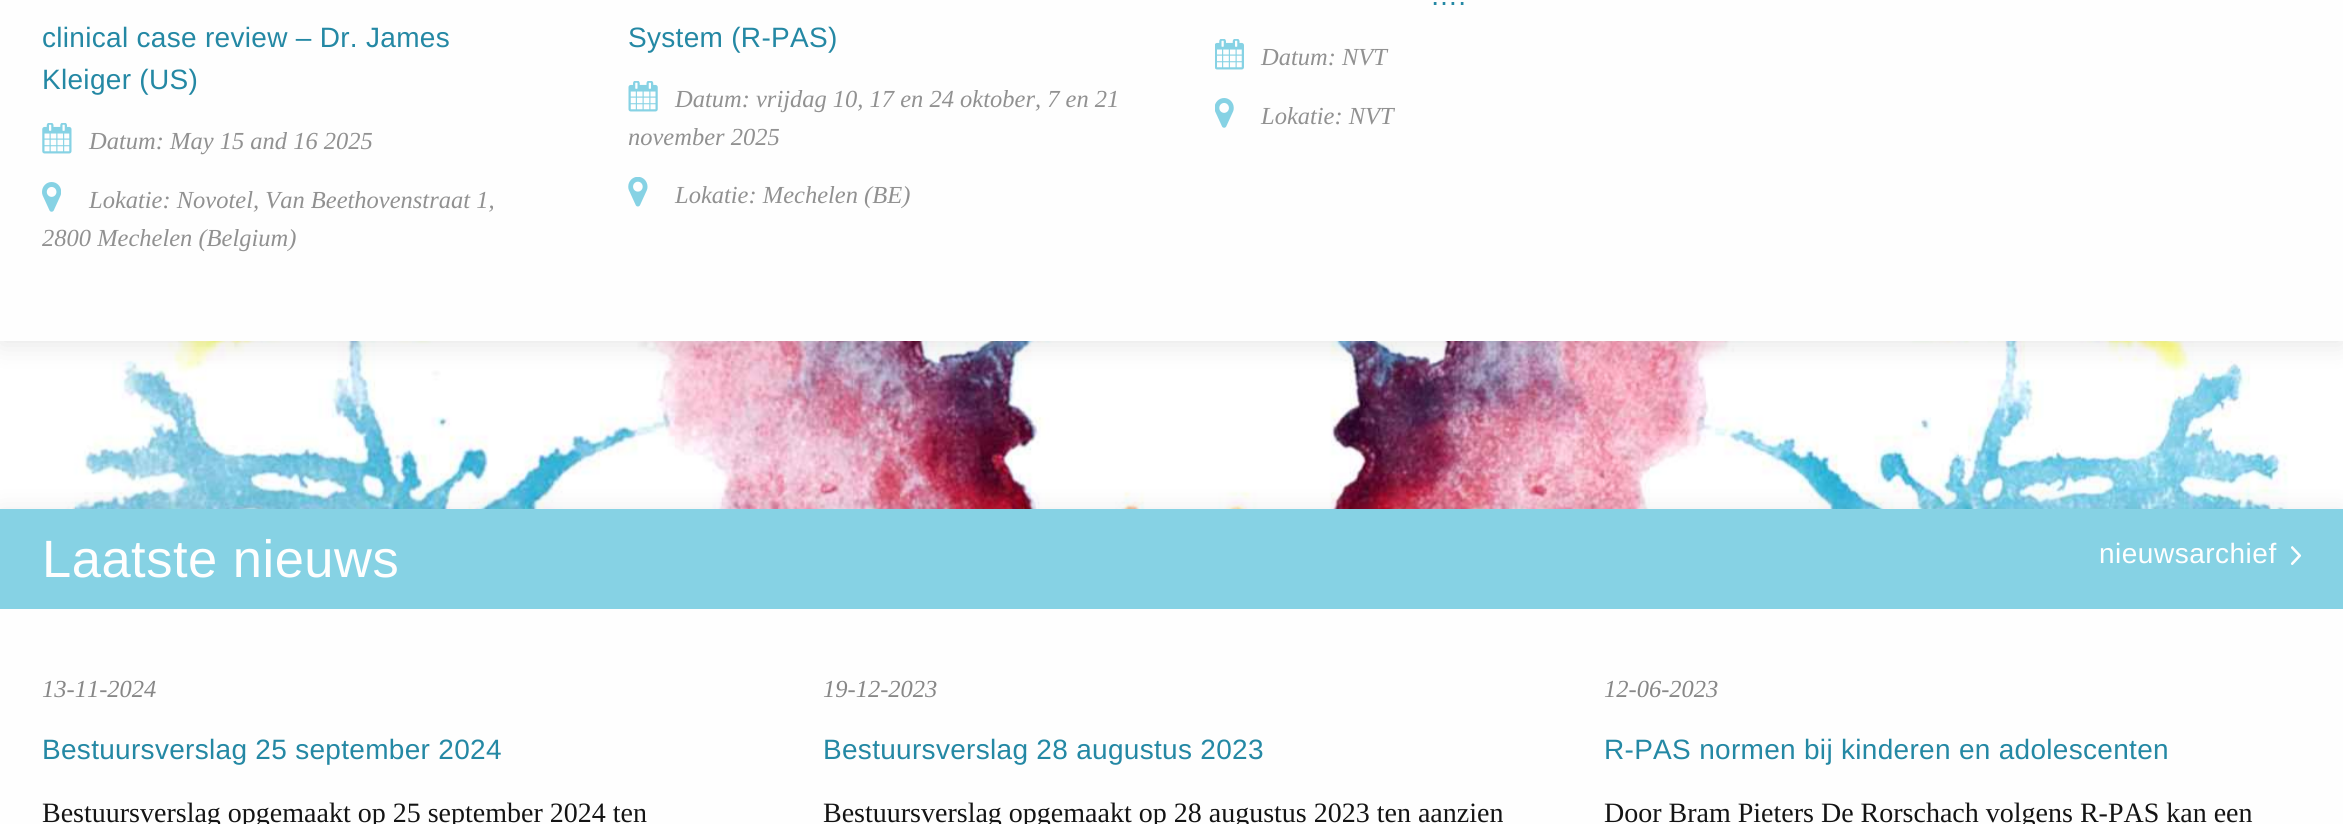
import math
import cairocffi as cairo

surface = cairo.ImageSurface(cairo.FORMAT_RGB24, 2343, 824)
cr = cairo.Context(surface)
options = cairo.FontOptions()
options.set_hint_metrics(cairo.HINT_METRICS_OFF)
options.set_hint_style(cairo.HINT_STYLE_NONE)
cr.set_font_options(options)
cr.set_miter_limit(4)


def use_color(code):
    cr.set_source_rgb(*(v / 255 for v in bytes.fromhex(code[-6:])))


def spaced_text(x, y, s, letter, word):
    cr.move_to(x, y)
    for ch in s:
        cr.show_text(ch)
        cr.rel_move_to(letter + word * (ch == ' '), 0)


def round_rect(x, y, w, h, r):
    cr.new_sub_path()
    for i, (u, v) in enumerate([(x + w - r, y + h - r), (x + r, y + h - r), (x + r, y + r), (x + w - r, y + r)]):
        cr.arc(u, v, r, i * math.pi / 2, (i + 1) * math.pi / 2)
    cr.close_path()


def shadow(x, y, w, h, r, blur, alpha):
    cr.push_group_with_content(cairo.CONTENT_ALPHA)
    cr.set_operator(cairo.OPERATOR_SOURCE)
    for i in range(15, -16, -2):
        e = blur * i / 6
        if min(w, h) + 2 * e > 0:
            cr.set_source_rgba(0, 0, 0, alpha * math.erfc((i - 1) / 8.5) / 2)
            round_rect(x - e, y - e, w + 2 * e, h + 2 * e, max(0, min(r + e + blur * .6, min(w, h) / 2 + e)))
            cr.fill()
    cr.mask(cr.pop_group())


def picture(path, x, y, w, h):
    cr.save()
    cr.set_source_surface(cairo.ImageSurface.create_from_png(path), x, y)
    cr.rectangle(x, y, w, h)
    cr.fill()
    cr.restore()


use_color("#ffffff")
cr.paint()
picture("img8.png", 0, 341, 2343, 168)
use_color("#000000")
shadow(0, -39, 2343, 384, 0, 13, 0.1)
use_color("#fefefe")
cr.rectangle(0, 0, 2343, 341)
cr.fill()
cr.select_font_face("Liberation Sans")
cr.set_font_size(28)
use_color("#2488a4")
spaced_text(42, 47, "clinical case review – Dr. James", 0.3, 0)
spaced_text(42, 89, "Kleiger (US)", 0.3, 0)
picture("img1.png", 42, 123, 30, 31)
cr.select_font_face("Liberation Serif", cairo.FONT_SLANT_ITALIC)
cr.set_font_size(24.5)
use_color("#919191")
cr.move_to(89, 149)
cr.show_text("Datum: May 15 and 16 2025")
picture("img2.png", 42, 182, 19, 30)
cr.move_to(89, 208)
cr.show_text("Lokatie: Novotel, Van Beethovenstraat 1,")
cr.move_to(42, 246)
cr.show_text("2800 Mechelen (Belgium)")
cr.select_font_face("Liberation Sans")
cr.set_font_size(28)
use_color("#2488a4")
spaced_text(628, 47, "System (R-PAS)", 0.3, 0)
picture("img3.png", 628, 81, 30, 31)
cr.select_font_face("Liberation Serif", cairo.FONT_SLANT_ITALIC)
cr.set_font_size(24.5)
use_color("#919191")
cr.move_to(675, 107)
cr.show_text("Datum: vrijdag 10, 17 en 24 oktober, 7 en 21")
cr.move_to(628, 145)
cr.show_text("november 2025")
picture("img4.png", 628, 177, 20, 30)
cr.move_to(675, 203)
cr.show_text("Lokatie: Mechelen (BE)")
cr.select_font_face("Liberation Sans")
cr.set_font_size(28)
use_color("#2488a4")
spaced_text(1430, 5, "….", 0.3, 0)
picture("img5.png", 1215, 39, 29, 31)
cr.select_font_face("Liberation Serif", cairo.FONT_SLANT_ITALIC)
cr.set_font_size(24.5)
use_color("#919191")
cr.move_to(1261, 65)
cr.show_text("Datum: NVT")
picture("img6.png", 1215, 98, 19, 30)
cr.move_to(1261, 124)
cr.show_text("Lokatie: NVT")
use_color("#000000")
shadow(0, 513, 2343, 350, 0, 13, 0.1)
use_color("#fefefe")
cr.rectangle(0, 609, 2343, 215)
cr.fill()
use_color("#86d2e4")
cr.rectangle(0, 509, 2343, 100)
cr.fill()
cr.select_font_face("Liberation Sans")
cr.set_font_size(52.5)
use_color("#fefefe")
spaced_text(42, 577, "Laatste nieuws", 0.5, 0)
cr.set_font_size(28)
spaced_text(2099, 563, "nieuwsarchief", 0.5, 0)
picture("img7.png", 2291, 546, 10, 19)
cr.select_font_face("Liberation Serif", cairo.FONT_SLANT_ITALIC)
cr.set_font_size(24.5)
use_color("#878787")
cr.move_to(42, 697)
cr.show_text("13-11-2024")
cr.select_font_face("Liberation Sans")
cr.set_font_size(28)
use_color("#2488a4")
spaced_text(42, 759, "Bestuursverslag 25 september 2024", 0.3, 0)
cr.select_font_face("Liberation Serif")
use_color("#141414")
cr.move_to(42, 822)
cr.show_text("Bestuursverslag opgemaakt op 25 september 2024 ten")
cr.select_font_face("Liberation Serif", cairo.FONT_SLANT_ITALIC)
cr.set_font_size(24.5)
use_color("#878787")
cr.move_to(823, 697)
cr.show_text("19-12-2023")
cr.select_font_face("Liberation Sans")
cr.set_font_size(28)
use_color("#2488a4")
spaced_text(823, 759, "Bestuursverslag 28 augustus 2023", 0.3, 0)
cr.select_font_face("Liberation Serif")
use_color("#141414")
cr.move_to(823, 822)
cr.show_text("Bestuursverslag opgemaakt op 28 augustus 2023 ten aanzien")
cr.select_font_face("Liberation Serif", cairo.FONT_SLANT_ITALIC)
cr.set_font_size(24.5)
use_color("#878787")
cr.move_to(1604, 697)
cr.show_text("12-06-2023")
cr.select_font_face("Liberation Sans")
cr.set_font_size(28)
use_color("#2488a4")
spaced_text(1604, 759, "R-PAS normen bij kinderen en adolescenten", 0.3, 0)
cr.select_font_face("Liberation Serif")
use_color("#141414")
cr.move_to(1604, 822)
cr.show_text("Door Bram Pieters De Rorschach volgens R-PAS kan een")
surface.write_to_png("result.png")
